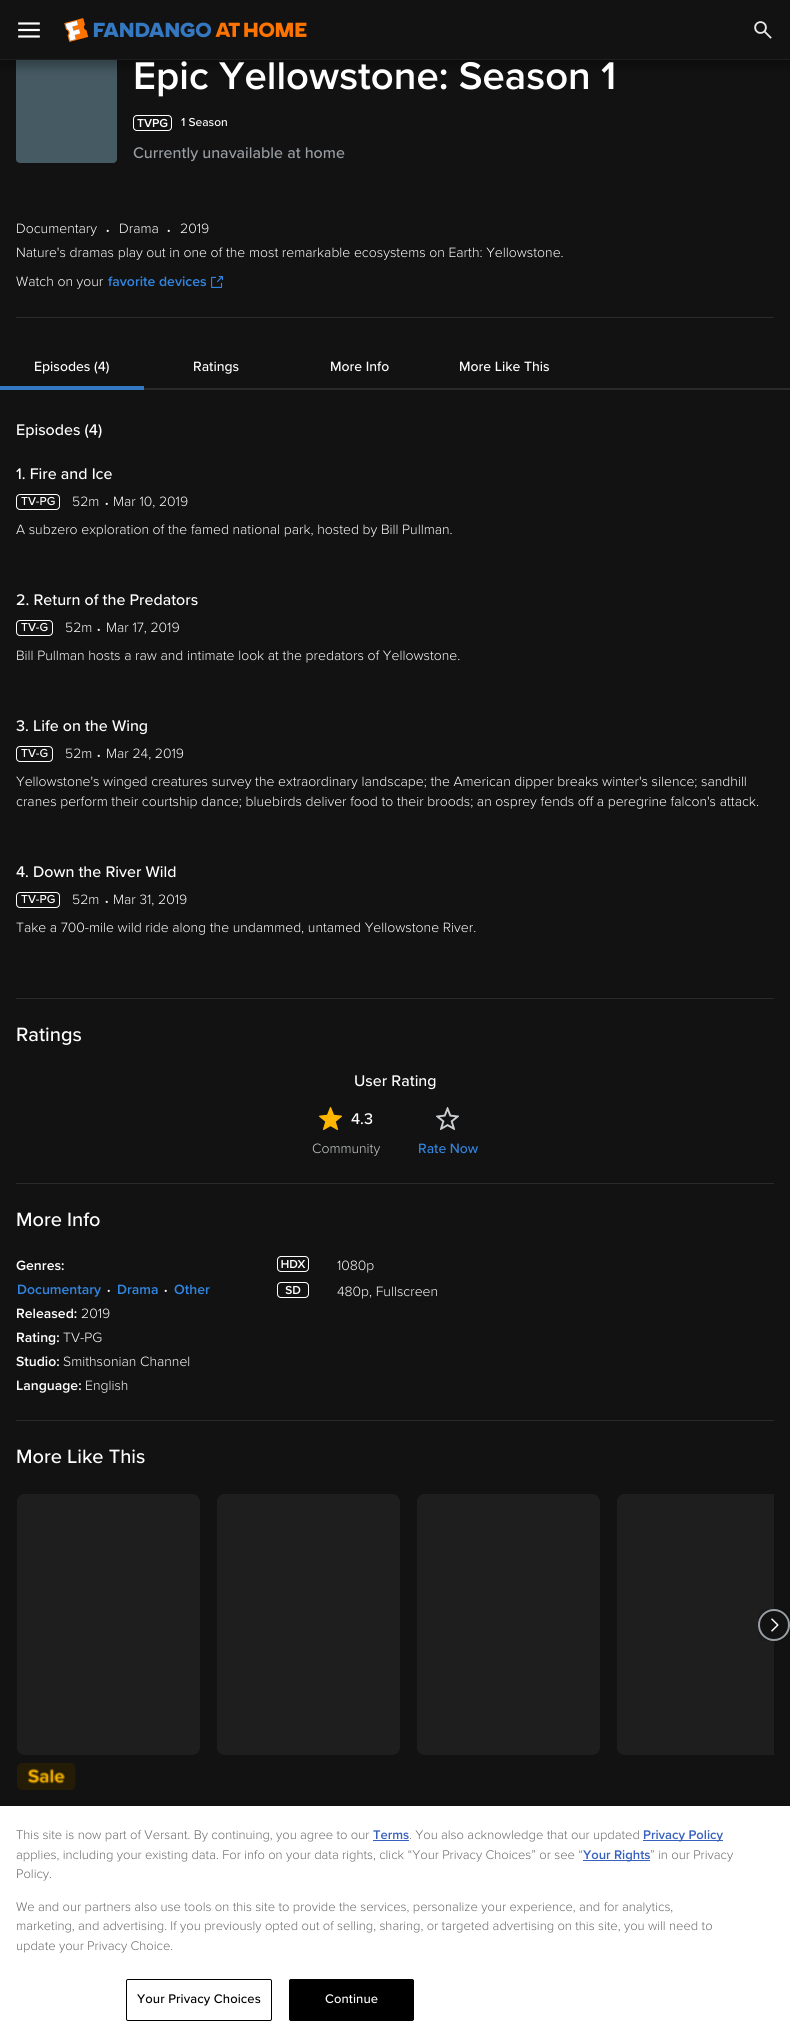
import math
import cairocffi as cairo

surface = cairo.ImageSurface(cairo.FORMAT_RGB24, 790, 2031)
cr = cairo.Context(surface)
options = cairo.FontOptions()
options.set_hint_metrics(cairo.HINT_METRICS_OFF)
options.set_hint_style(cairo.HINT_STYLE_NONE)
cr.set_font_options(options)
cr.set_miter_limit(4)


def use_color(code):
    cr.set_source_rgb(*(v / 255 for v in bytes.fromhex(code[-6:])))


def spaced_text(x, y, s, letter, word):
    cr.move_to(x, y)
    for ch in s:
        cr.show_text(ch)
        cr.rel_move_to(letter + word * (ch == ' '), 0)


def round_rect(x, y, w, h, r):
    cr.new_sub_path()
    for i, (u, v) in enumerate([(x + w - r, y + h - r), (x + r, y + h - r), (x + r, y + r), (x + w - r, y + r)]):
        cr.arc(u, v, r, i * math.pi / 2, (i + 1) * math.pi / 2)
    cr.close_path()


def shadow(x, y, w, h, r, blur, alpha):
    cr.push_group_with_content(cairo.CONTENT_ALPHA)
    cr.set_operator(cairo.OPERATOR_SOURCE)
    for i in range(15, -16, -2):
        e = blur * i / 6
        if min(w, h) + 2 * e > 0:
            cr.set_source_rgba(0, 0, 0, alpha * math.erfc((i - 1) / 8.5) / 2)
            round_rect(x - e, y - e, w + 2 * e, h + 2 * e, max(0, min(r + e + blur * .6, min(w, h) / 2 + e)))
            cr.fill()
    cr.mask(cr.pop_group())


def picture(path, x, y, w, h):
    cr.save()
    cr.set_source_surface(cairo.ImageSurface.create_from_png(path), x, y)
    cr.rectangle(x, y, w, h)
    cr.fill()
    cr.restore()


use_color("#121212")
cr.paint()
use_color("#465a63")
round_rect(16, 15, 101, 148, 4)
cr.fill()
use_color("#000000")
shadow(-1, -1, 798, 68, 0, 5, 0.3)
use_color("#121212")
cr.rectangle(0, 0, 790, 59)
cr.fill()
use_color("#1e1e1e")
cr.rectangle(0, 59, 790, 1)
cr.fill()
picture("img1.png", 18, 22, 22, 16)
picture("img2.png", 64, 18, 243, 24)
picture("img3.png", 754, 21, 18, 18)
cr.select_font_face("Proxima Nova SemiBold")
cr.set_font_size(40)
use_color("#ffffff")
cr.move_to(133, 89)
cr.show_text("Epic Yellowstone: Season 1")
picture("img4.png", 133, 115, 39, 16)
cr.select_font_face("Proxima Nova Medium")
cr.set_font_size(12)
cr.move_to(181, 126)
cr.show_text("1 Season")
cr.set_font_size(16)
use_color("#999ea3")
cr.move_to(133, 158)
cr.show_text("Currently unavailable at home")
use_color("#2a2a2a")
cr.rectangle(16, 317, 758, 1)
cr.fill()
cr.select_font_face("Proxima Nova Light")
cr.set_font_size(14)
use_color("#ffffff")
cr.move_to(16, 233)
cr.show_text("Documentary")
cr.set_font_size(25)
cr.move_to(105, 237)
cr.show_text("·")
cr.set_font_size(14)
cr.move_to(119, 233)
cr.show_text("Drama")
cr.set_font_size(25)
cr.move_to(166, 237)
cr.show_text("·")
cr.set_font_size(14)
cr.move_to(180, 233)
cr.show_text("2019")
cr.move_to(16, 257)
cr.show_text("Nature's dramas play out in one of the most remarkable ecosystems on Earth: Yellowstone.")
cr.move_to(16, 286)
cr.show_text("Watch on your")
cr.select_font_face("Proxima Nova SemiBold")
use_color("#3185e0")
cr.move_to(108, 286)
cr.show_text("favorite devices")
picture("img5.png", 211, 276, 12, 12)
use_color("#3478c1")
cr.rectangle(0, 386, 144, 4)
cr.fill()
cr.select_font_face("Proxima Nova Medium")
use_color("#ffffff")
cr.move_to(34, 371)
cr.show_text("Episodes (4)")
cr.move_to(193, 371)
cr.show_text("Ratings")
cr.move_to(330, 371)
cr.show_text("More Info")
cr.move_to(459, 371)
cr.show_text("More Like This")
use_color("#2a2a2a")
cr.rectangle(144, 388, 646, 2)
cr.fill()
cr.rectangle(16, 998, 758, 1)
cr.fill()
cr.set_font_size(16)
use_color("#ffffff")
cr.move_to(16, 435)
cr.show_text("Episodes (4)")
cr.move_to(16, 479)
cr.show_text("1. Fire and Ice")
round_rect(16.5, 494.5, 43, 15, 3.5)
cr.set_line_width(1)
cr.stroke()
cr.set_font_size(12)
cr.move_to(21, 505)
cr.show_text("TV-PG")
cr.select_font_face("Proxima Nova Light")
cr.set_font_size(14)
cr.move_to(72, 506)
cr.show_text("52m")
cr.set_font_size(25)
cr.move_to(104, 510)
cr.show_text("·")
cr.set_font_size(14)
cr.move_to(113, 506)
cr.show_text("Mar 10, 2019")
cr.move_to(16, 534)
cr.show_text("A subzero exploration of the famed national park, hosted by Bill Pullman.")
cr.select_font_face("Proxima Nova Medium")
cr.set_font_size(16)
cr.move_to(16, 605)
cr.show_text("2. Return of the Predators")
round_rect(16.5, 620.5, 36, 15, 3.5)
cr.stroke()
cr.set_font_size(12)
cr.move_to(21, 631)
cr.show_text("TV-G")
cr.select_font_face("Proxima Nova Light")
cr.set_font_size(14)
cr.move_to(65, 632)
cr.show_text("52m")
cr.set_font_size(25)
cr.move_to(96, 636)
cr.show_text("·")
cr.set_font_size(14)
cr.move_to(106, 632)
cr.show_text("Mar 17, 2019")
cr.move_to(16, 660)
cr.show_text("Bill Pullman hosts a raw and intimate look at the predators of Yellowstone.")
cr.select_font_face("Proxima Nova Medium")
cr.set_font_size(16)
cr.move_to(16, 731)
cr.show_text("3. Life on the Wing")
round_rect(16.5, 746.5, 36, 15, 3.5)
cr.stroke()
cr.set_font_size(12)
cr.move_to(21, 757)
cr.show_text("TV-G")
cr.select_font_face("Proxima Nova Light")
cr.set_font_size(14)
cr.move_to(65, 758)
cr.show_text("52m")
cr.set_font_size(25)
cr.move_to(96, 762)
cr.show_text("·")
cr.set_font_size(14)
cr.move_to(106, 758)
cr.show_text("Mar 24, 2019")
cr.move_to(16, 786)
cr.show_text("Yellowstone's winged creatures survey the extraordinary landscape; the American dipper breaks winter's silence; sandhill")
cr.move_to(16, 806)
cr.show_text("cranes perform their courtship dance; bluebirds deliver food to their broods; an osprey fends off a peregrine falcon's attack.")
cr.select_font_face("Proxima Nova Medium")
cr.set_font_size(16)
cr.move_to(16, 877)
cr.show_text("4. Down the River Wild")
round_rect(16.5, 892.5, 43, 15, 3.5)
cr.stroke()
cr.set_font_size(12)
cr.move_to(21, 903)
cr.show_text("TV-PG")
cr.select_font_face("Proxima Nova Light")
cr.set_font_size(14)
cr.move_to(72, 904)
cr.show_text("52m")
cr.set_font_size(25)
cr.move_to(104, 908)
cr.show_text("·")
cr.set_font_size(14)
cr.move_to(113, 904)
cr.show_text("Mar 31, 2019")
cr.move_to(16, 932)
cr.show_text("Take a 700-mile wild ride along the undammed, untamed Yellowstone River.")
use_color("#2a2a2a")
cr.rectangle(16, 1183, 758, 1)
cr.fill()
cr.select_font_face("Proxima Nova Medium")
cr.set_font_size(20)
use_color("#ffffff")
cr.move_to(16, 1041)
cr.show_text("Ratings")
cr.set_font_size(16)
cr.move_to(354, 1086)
cr.show_text("User Rating")
picture("img6.png", 319, 1107, 23, 23)
cr.move_to(351, 1124)
cr.show_text("4.3")
cr.select_font_face("Proxima Nova Light")
cr.set_font_size(14)
use_color("#cccfd1")
cr.move_to(312, 1153)
cr.show_text("Community")
picture("img7.png", 436, 1107, 23, 23)
cr.select_font_face("Proxima Nova Medium")
use_color("#3185e0")
cr.move_to(418, 1153)
cr.show_text("Rate Now")
use_color("#2a2a2a")
cr.rectangle(16, 1420, 758, 1)
cr.fill()
cr.set_font_size(20)
use_color("#ffffff")
cr.move_to(16, 1226)
cr.show_text("More Info")
cr.select_font_face("Proxima Nova SemiBold")
cr.set_font_size(14)
cr.move_to(16, 1270)
cr.show_text("Genres:")
use_color("#3185e0")
cr.move_to(17, 1294)
cr.show_text("Documentary")
cr.select_font_face("Proxima Nova Light")
cr.set_font_size(25)
use_color("#ffffff")
cr.move_to(106, 1297)
cr.show_text("·")
cr.select_font_face("Proxima Nova SemiBold")
cr.set_font_size(14)
use_color("#3185e0")
cr.move_to(117, 1294)
cr.show_text("Drama")
cr.select_font_face("Proxima Nova Light")
cr.set_font_size(25)
use_color("#ffffff")
cr.move_to(163, 1297)
cr.show_text("·")
cr.select_font_face("Proxima Nova SemiBold")
cr.set_font_size(14)
use_color("#3185e0")
cr.move_to(174, 1294)
cr.show_text("Other")
use_color("#ffffff")
cr.move_to(16, 1318)
cr.show_text("Released:")
cr.select_font_face("Proxima Nova Light")
cr.move_to(81, 1318)
cr.show_text("2019")
cr.select_font_face("Proxima Nova SemiBold")
cr.move_to(16, 1342)
cr.show_text("Rating:")
cr.select_font_face("Proxima Nova Light")
cr.move_to(63, 1342)
cr.show_text("TV-PG")
cr.select_font_face("Proxima Nova SemiBold")
cr.move_to(16, 1366)
cr.show_text("Studio:")
cr.select_font_face("Proxima Nova Light")
cr.move_to(63, 1366)
cr.show_text("Smithsonian Channel")
cr.select_font_face("Proxima Nova SemiBold")
cr.move_to(16, 1390)
cr.show_text("Language:")
cr.select_font_face("Proxima Nova Light")
cr.move_to(85, 1390)
cr.show_text("English")
picture("img8.png", 277, 1256, 32, 16)
cr.move_to(337, 1270)
cr.show_text("1080p")
picture("img9.png", 277, 1282, 32, 16)
cr.move_to(337, 1296)
cr.show_text("480p, Fullscreen")
cr.select_font_face("Proxima Nova Medium")
cr.set_font_size(20)
cr.move_to(16, 1463)
cr.show_text("More Like This")
use_color("#1e1e1e")
round_rect(17, 1494, 183, 261, 8)
cr.fill()
picture("img10.png", 17, 1763, 59, 27)
round_rect(217, 1494, 183, 261, 8)
cr.fill()
round_rect(417, 1494, 183, 261, 8)
cr.fill()
cr.new_path()
cr.move_to(625, 1494)
cr.line_to(774, 1494)
cr.line_to(774, 1755)
cr.line_to(625, 1755)
cr.curve_to(620.5, 1755, 617, 1751.5, 617, 1747)
cr.line_to(617, 1502)
cr.curve_to(617, 1497.5, 620.5, 1494, 625, 1494)
cr.close_path()
cr.fill()
picture("img11.png", 758, 1609, 32, 32)
use_color("#ffffff")
cr.rectangle(0, 1806, 790, 225)
cr.fill()
cr.select_font_face("Proxima Nova Light")
cr.set_font_size(13)
use_color("#696969")
cr.move_to(16, 1839)
cr.show_text("This site is now part of Versant. By continuing, you agree to our")
cr.select_font_face("Proxima Nova SemiBold")
use_color("#3860be")
cr.move_to(373, 1839)
cr.show_text("Terms")
cr.rectangle(373, 1840, 36, 1)
cr.fill()
cr.select_font_face("Proxima Nova Light")
use_color("#696969")
cr.move_to(409, 1839)
cr.show_text(". You also acknowledge that our updated")
use_color("#3860be")
cr.rectangle(643, 1840, 80, 1)
cr.fill()
cr.select_font_face("Proxima Nova SemiBold")
cr.move_to(643, 1839)
cr.show_text("Privacy Policy")
cr.select_font_face("Proxima Nova Light")
use_color("#696969")
cr.move_to(16, 1859)
cr.show_text("applies, including your existing data. For info on your data rights, click “Your Privacy Choices” or see “")
use_color("#3860be")
cr.rectangle(583, 1860, 67, 1)
cr.fill()
cr.select_font_face("Proxima Nova SemiBold")
cr.move_to(583, 1859)
cr.show_text("Your Rights")
cr.select_font_face("Proxima Nova Light")
use_color("#696969")
cr.move_to(650, 1859)
cr.show_text("” in our Privacy")
cr.move_to(16, 1878)
cr.show_text("Policy.")
cr.move_to(16, 1911)
cr.show_text("We and our partners also use tools on this site to provide the services, personalize your experience, and for analytics,")
cr.move_to(16, 1930)
cr.show_text("marketing, and advertising. If you previously opted out of selling, sharing, or targeted advertising on this site, you will need to")
cr.move_to(16, 1950)
cr.show_text("update your Privacy Choice.")
round_rect(126.5, 1979.5, 145, 41, 1.5)
use_color("#000000")
cr.stroke()
cr.select_font_face("Proxima Nova Medium")
spaced_text(137, 2003, "Your Privacy Choices", 0.1, 0)
round_rect(289.5, 1979.5, 124, 41, 1.5)
cr.fill_preserve()
cr.stroke()
use_color("#ffffff")
spaced_text(325, 2003, "Continue", 0.1, 0)
surface.write_to_png("result.png")
